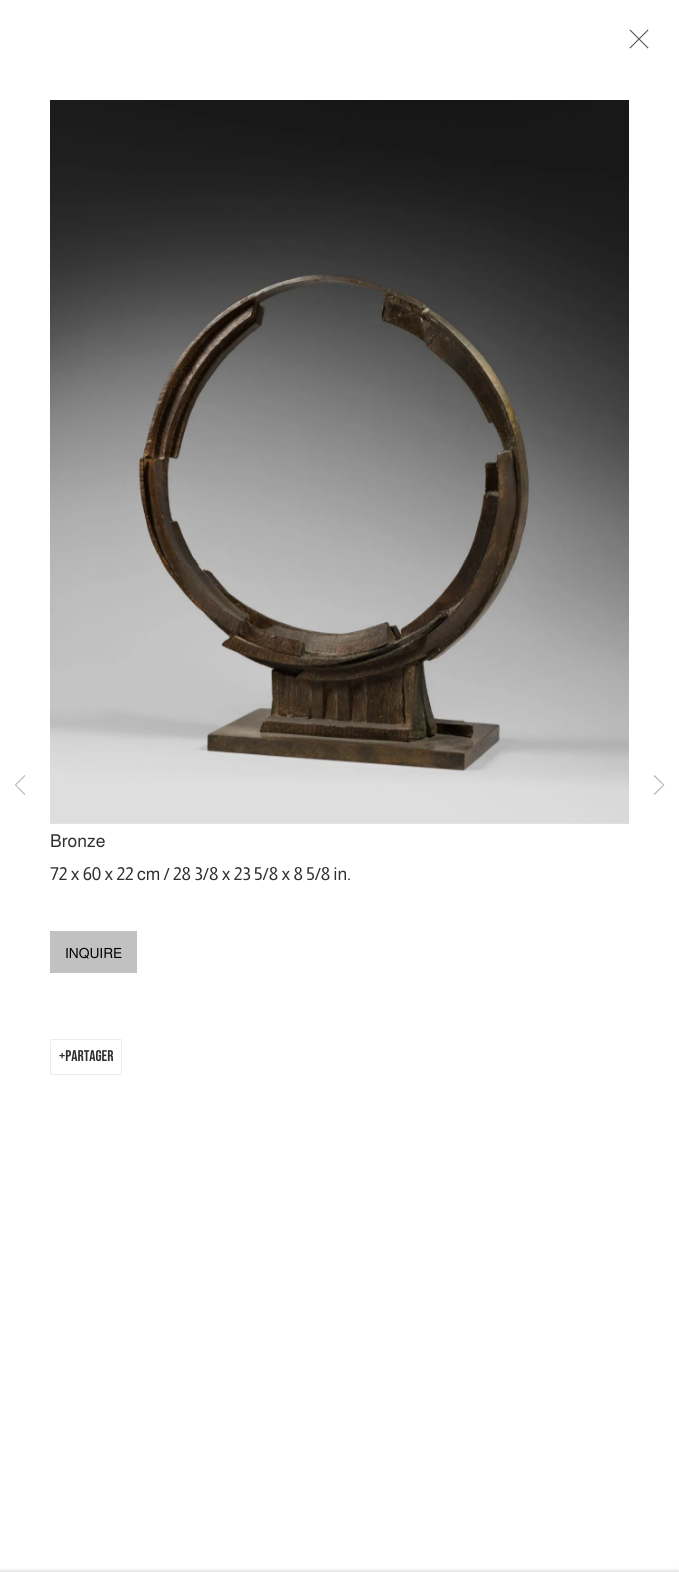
import math
import cairocffi as cairo

surface = cairo.ImageSurface(cairo.FORMAT_RGB24, 679, 1572)
cr = cairo.Context(surface)
options = cairo.FontOptions()
options.set_hint_metrics(cairo.HINT_METRICS_OFF)
options.set_hint_style(cairo.HINT_STYLE_NONE)
cr.set_font_options(options)
cr.set_miter_limit(4)


def use_color(code):
    cr.set_source_rgb(*(v / 255 for v in bytes.fromhex(code[-6:])))


def round_rect(x, y, w, h, r):
    cr.new_sub_path()
    for i, (u, v) in enumerate([(x + w - r, y + h - r), (x + r, y + h - r), (x + r, y + r), (x + w - r, y + r)]):
        cr.arc(u, v, r, i * math.pi / 2, (i + 1) * math.pi / 2)
    cr.close_path()


def shadow(x, y, w, h, r, blur, alpha):
    cr.push_group_with_content(cairo.CONTENT_ALPHA)
    cr.set_operator(cairo.OPERATOR_SOURCE)
    for i in range(15, -16, -2):
        e = blur * i / 6
        if min(w, h) + 2 * e > 0:
            cr.set_source_rgba(0, 0, 0, alpha * math.erfc((i - 1) / 8.5) / 2)
            round_rect(x - e, y - e, w + 2 * e, h + 2 * e, max(0, min(r + e + blur * .6, min(w, h) / 2 + e)))
            cr.fill()
    cr.mask(cr.pop_group())


def picture(path, x, y, w, h):
    cr.save()
    cr.set_source_surface(cairo.ImageSurface.create_from_png(path), x, y)
    cr.rectangle(x, y, w, h)
    cr.fill()
    cr.restore()


use_color("#ffffff")
cr.paint()
picture("img1.png", 629, 29, 20, 20)
picture("img2.png", 15, 775, 11, 20)
use_color("#b9b9b9")
cr.new_path()
cr.move_to(664.5, 785)
cr.line_to(654.5, 775)
cr.line_to(653.5, 776)
cr.line_to(663, 785)
cr.line_to(653.5, 794)
cr.line_to(654.5, 795)
cr.close_path()
cr.fill()
picture("img3.png", 50, 100, 579, 724)
cr.select_font_face("Almarai")
cr.set_font_size(17.8)
use_color("#2f2f2f")
cr.move_to(50, 847)
cr.show_text("Bronze")
cr.move_to(50, 880)
cr.show_text("72 x 60 x 22 cm / 28 3/8 x 23 5/8 x 8 5/8 in.")
use_color("#c1c1c1")
cr.rectangle(50, 931, 87, 42)
cr.fill()
cr.set_font_size(14)
use_color("#000000")
cr.move_to(65, 958)
cr.show_text("INQUIRE")
round_rect(50.5, 1039.5, 71, 35, 1.5)
use_color("#ebebeb")
cr.set_line_width(1)
cr.stroke()
cr.select_font_face("Bebas Neue")
cr.set_font_size(15.5)
use_color("#2f2f2f")
cr.move_to(59, 1061)
cr.show_text("+PARTAGER")
use_color("#000000")
shadow(0, 1572, 679, 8, 0, 2.5, 0.23)
surface.write_to_png("result.png")
